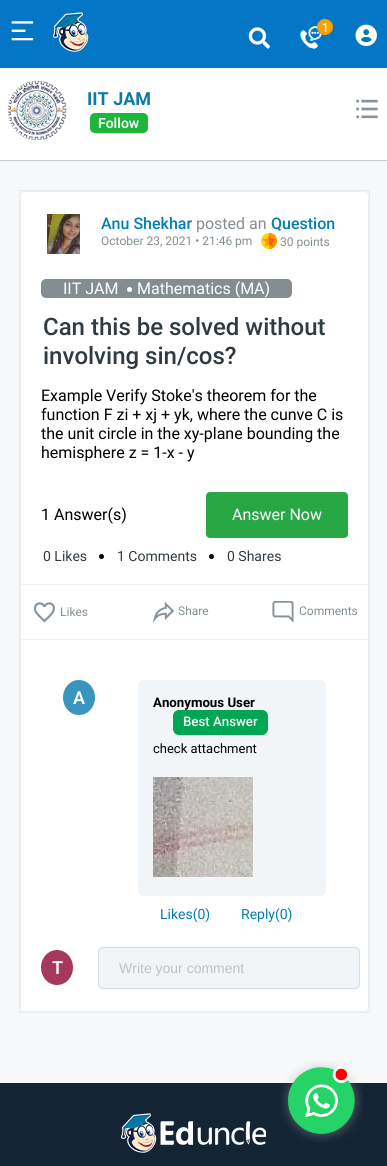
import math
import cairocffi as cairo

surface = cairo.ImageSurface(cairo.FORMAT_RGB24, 387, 1166)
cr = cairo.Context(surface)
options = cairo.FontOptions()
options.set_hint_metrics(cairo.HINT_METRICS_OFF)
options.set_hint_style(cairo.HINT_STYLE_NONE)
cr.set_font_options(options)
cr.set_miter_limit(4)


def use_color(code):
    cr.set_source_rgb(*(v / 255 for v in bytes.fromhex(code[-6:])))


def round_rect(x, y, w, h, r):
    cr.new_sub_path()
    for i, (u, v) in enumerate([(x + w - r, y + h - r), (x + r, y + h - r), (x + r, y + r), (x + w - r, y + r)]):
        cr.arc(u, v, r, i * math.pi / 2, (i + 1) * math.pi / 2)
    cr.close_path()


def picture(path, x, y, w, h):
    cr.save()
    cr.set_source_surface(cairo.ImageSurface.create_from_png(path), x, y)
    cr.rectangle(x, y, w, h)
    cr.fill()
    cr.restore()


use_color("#132534")
cr.paint()
use_color("#0376c6")
cr.rectangle(0, 0, 387, 68)
cr.fill()
picture("img1.png", 11, 21, 23, 20)
picture("img2.png", 53, 12, 36, 40)
picture("img3.png", 248, 27, 23, 22)
picture("img4.png", 300, 19, 33, 30)
picture("img5.png", 355, 24, 22, 22)
use_color("#f7f8f9")
cr.rectangle(0, 161, 387, 922)
cr.fill()
use_color("#ffffff")
cr.rectangle(0, 68, 387, 92)
cr.fill()
use_color("#cccccc")
cr.rectangle(0, 160, 387, 1)
cr.fill()
picture("img6.png", 7, 80, 60, 60)
cr.select_font_face("Roboto", cairo.FONT_SLANT_NORMAL, cairo.FONT_WEIGHT_BOLD)
cr.set_font_size(18)
use_color("#0a7aa7")
cr.move_to(87, 105)
cr.show_text("IIT JAM")
use_color("#1db63a")
round_rect(90, 113, 58, 20, 5)
cr.fill()
cr.select_font_face("Roboto SemiBold")
cr.set_font_size(14)
use_color("#ffffff")
cr.move_to(98, 128)
cr.show_text("Follow")
picture("img7.png", 356, 99, 22, 20)
cr.rectangle(19.5, 190.5, 350, 822)
use_color("#e5eaec")
cr.set_line_width(1)
cr.stroke()
use_color("#ffffff")
round_rect(20.5, 191.5, 348, 820, 4.5)
cr.fill_preserve()
use_color("#efefef")
cr.stroke()
picture("img8.png", 47, 214, 33, 40)
cr.select_font_face("Roboto Medium")
cr.set_font_size(16)
use_color("#007fb2")
cr.move_to(101, 229)
cr.show_text("Anu Shekhar")
cr.select_font_face("Roboto")
use_color("#848e92")
cr.move_to(196, 229)
cr.show_text("posted an")
cr.select_font_face("Roboto Medium")
use_color("#007fb2")
cr.move_to(271, 229)
cr.show_text("Question")
cr.select_font_face("Roboto")
cr.set_font_size(12)
use_color("#848e92")
cr.move_to(101, 245)
cr.show_text("October 23, 2021 • 21:46 pm")
picture("img9.png", 261, 233, 16, 16)
cr.move_to(280, 246)
cr.show_text("30 points")
use_color("#848d92")
round_rect(41, 279, 251, 19, 5)
cr.fill()
cr.set_font_size(16)
use_color("#ffffff")
cr.move_to(63, 294)
cr.show_text("IIT JAM")
cr.new_path()
cr.arc(129.5, 289.5, 2.5, 0, 2 * math.pi)
cr.fill()
cr.move_to(137, 294)
cr.show_text("Mathematics (MA)")
cr.select_font_face("Roboto Medium")
cr.set_font_size(24)
use_color("#303b41")
cr.move_to(43, 335)
cr.show_text("Can this be solved without")
cr.move_to(43, 364)
cr.show_text("involving sin/cos?")
cr.select_font_face("Roboto")
cr.set_font_size(16)
use_color("#000000")
cr.move_to(41, 401)
cr.show_text("Example Verify Stoke's theorem for the")
cr.move_to(41, 420)
cr.show_text("function F zi + xj + yk, where the cunve C is")
cr.move_to(41, 439)
cr.show_text("the unit circle in the xy-plane bounding the")
cr.move_to(41, 458)
cr.show_text("hemisphere z = 1-x - y")
cr.move_to(41, 520)
cr.show_text("1 Answer(s)")
use_color("#28a745")
round_rect(206, 492, 142, 46, 4)
cr.fill()
use_color("#ffffff")
cr.move_to(232, 520)
cr.show_text("Answer Now")
cr.set_font_size(14)
use_color("#303b41")
cr.move_to(43, 561)
cr.show_text("0 Likes")
use_color("#000000")
cr.new_path()
cr.arc(101.5, 556.5, 2.5, 0, 2 * math.pi)
cr.fill()
use_color("#303b41")
cr.move_to(117, 561)
cr.show_text("1 Comments")
use_color("#000000")
cr.new_path()
cr.arc(211.5, 556.5, 2.5, 0, 2 * math.pi)
cr.fill()
use_color("#303b41")
cr.move_to(227, 561)
cr.show_text("0 Shares")
use_color("#f0f2f3")
cr.rectangle(21, 584, 347, 1)
cr.fill()
cr.rectangle(21, 639, 347, 1)
cr.fill()
picture("img10.png", 33, 602, 22, 21)
cr.set_font_size(12)
use_color("#848e92")
cr.move_to(60, 616)
cr.show_text("Likes")
picture("img11.png", 153, 602, 22, 21)
cr.move_to(178, 615)
cr.show_text("Share")
picture("img12.png", 272, 601, 22, 22)
cr.move_to(299, 615)
cr.show_text("Comments")
use_color("#3994c0")
cr.new_path()
cr.move_to(79, 680)
cr.curve_to(88, 680, 95, 688, 95, 697.5)
cr.curve_to(95, 707, 88, 715, 79, 715)
cr.curve_to(70, 715, 63, 707, 63, 697.5)
cr.curve_to(63, 688, 70, 680, 79, 680)
cr.close_path()
cr.fill()
cr.select_font_face("Roboto SemiBold")
cr.set_font_size(18)
use_color("#ffffff")
cr.move_to(73, 704)
cr.show_text("A")
use_color("#f1f5f8")
round_rect(138, 680, 188, 216, 5)
cr.fill()
cr.select_font_face("Roboto", cairo.FONT_SLANT_NORMAL, cairo.FONT_WEIGHT_BOLD)
cr.set_font_size(13.25)
use_color("#000000")
cr.move_to(153, 707)
cr.show_text("Anonymous User")
use_color("#00a651")
round_rect(173, 710, 95, 25, 6)
cr.fill()
cr.select_font_face("Roboto Medium")
use_color("#ffffff")
cr.move_to(183, 726)
cr.show_text("Best Answer")
cr.select_font_face("Roboto")
cr.set_font_size(13)
use_color("#000000")
cr.move_to(153, 753)
cr.show_text("check attachment")
picture("img13.png", 153, 777, 100, 100)
cr.set_font_size(14)
use_color("#007fb2")
cr.move_to(160, 919)
cr.show_text("Likes(0)")
cr.move_to(241, 919)
cr.show_text("Reply(0)")
use_color("#a7385d")
cr.new_path()
cr.move_to(57, 950)
cr.curve_to(66, 950, 73, 958, 73, 967.5)
cr.curve_to(73, 977, 66, 985, 57, 985)
cr.curve_to(48, 985, 41, 977, 41, 967.5)
cr.curve_to(41, 958, 48, 950, 57, 950)
cr.close_path()
cr.fill()
cr.select_font_face("Roboto SemiBold")
cr.set_font_size(18)
use_color("#ffffff")
cr.move_to(52, 974)
cr.show_text("T")
use_color("#f1f5f8")
round_rect(98.5, 947.5, 261, 41, 4.5)
cr.fill_preserve()
use_color("#dadee0")
cr.stroke()
cr.select_font_face("Liberation Sans")
cr.set_font_size(14)
use_color("#c6bec2")
cr.move_to(119, 973)
cr.show_text("Write your comment")
picture("img14.png", 121, 1113, 145, 40)
picture("img15.png", 280, 1061, 83, 82)
surface.write_to_png("result.png")
